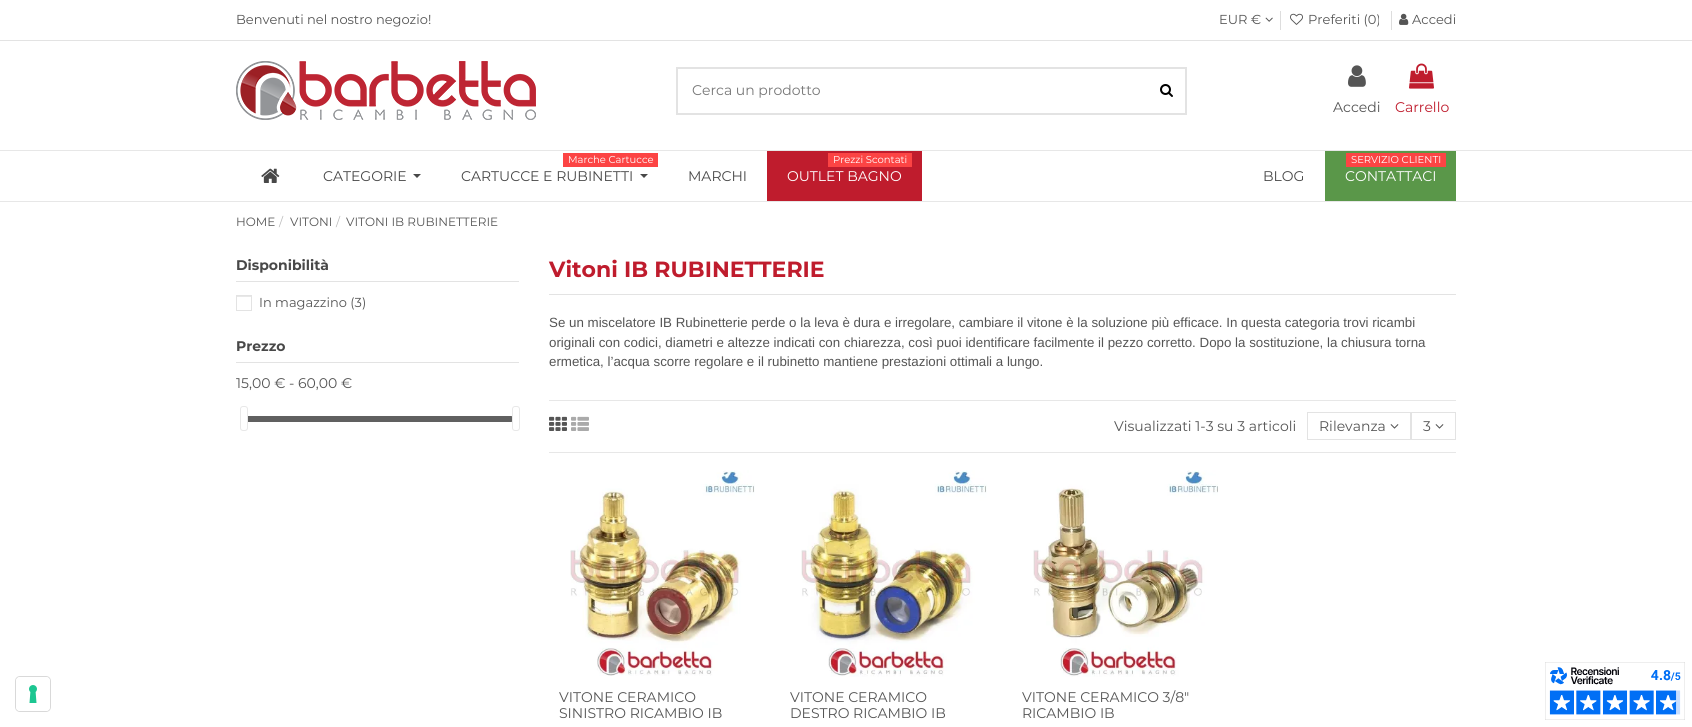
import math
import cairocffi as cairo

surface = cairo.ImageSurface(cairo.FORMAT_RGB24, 1692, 727)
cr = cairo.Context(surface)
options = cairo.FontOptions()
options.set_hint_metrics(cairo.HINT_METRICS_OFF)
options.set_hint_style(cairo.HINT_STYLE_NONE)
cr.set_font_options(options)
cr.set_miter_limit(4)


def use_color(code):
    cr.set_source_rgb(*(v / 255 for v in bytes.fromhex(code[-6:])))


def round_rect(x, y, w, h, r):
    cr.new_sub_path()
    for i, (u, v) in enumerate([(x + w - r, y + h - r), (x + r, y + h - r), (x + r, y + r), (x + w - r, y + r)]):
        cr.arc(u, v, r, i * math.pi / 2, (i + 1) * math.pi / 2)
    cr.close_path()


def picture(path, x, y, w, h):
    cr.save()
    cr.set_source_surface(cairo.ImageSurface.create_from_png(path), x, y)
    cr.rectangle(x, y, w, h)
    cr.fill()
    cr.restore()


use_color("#ffffff")
cr.paint()
round_rect(15.5, 676.5, 35, 35, 4.5)
use_color("#d9d9d9")
cr.set_line_width(1)
cr.stroke()
use_color("#ffffff")
round_rect(16, 677, 34, 34, 4)
cr.fill()
picture("img1.png", 29, 685, 8, 18)
use_color("#e3e3e3")
cr.rectangle(0, 40, 1692, 1)
cr.fill()
cr.select_font_face("Montserrat")
cr.set_font_size(13)
use_color("#555555")
cr.move_to(236, 24)
cr.show_text("Benvenuti nel nostro negozio!")
cr.move_to(1219, 24)
cr.show_text("EUR €")
picture("img2.png", 1265, 17, 8, 5)
use_color("#dddddd")
cr.rectangle(1280, 11, 1, 19)
cr.fill()
picture("img3.png", 1290, 13, 13, 12)
use_color("#555555")
cr.move_to(1308, 24)
cr.show_text("Preferiti (0)")
use_color("#dddddd")
cr.rectangle(1391, 11, 1, 19)
cr.fill()
picture("img4.png", 1399, 13, 10, 12)
use_color("#555555")
cr.move_to(1412, 24)
cr.show_text("Accedi")
picture("img5.png", 236, 61, 300, 59)
cr.rectangle(677, 68, 509, 46)
use_color("#e3e3e3")
cr.set_line_width(2)
cr.stroke()
cr.set_font_size(14)
use_color("#777777")
cr.move_to(692, 95)
cr.show_text("Cerca un prodotto")
picture("img6.png", 1160, 84, 13, 13)
picture("img7.png", 1348, 65, 18, 22)
use_color("#555555")
cr.move_to(1333, 112)
cr.show_text("Accedi")
picture("img8.png", 1409, 63, 25, 26)
use_color("#bf1c2d")
cr.move_to(1395, 112)
cr.show_text("Carrello")
use_color("#e7e7e7")
cr.rectangle(0, 150, 1692, 1)
cr.fill()
cr.rectangle(0, 201, 1692, 1)
cr.fill()
picture("img9.png", 261, 168, 19, 15)
use_color("#484848")
cr.move_to(323, 181)
cr.show_text("CATEGORIE")
cr.new_path()
cr.move_to(413, 174)
cr.line_to(421, 174)
cr.line_to(417, 178)
cr.close_path()
cr.fill()
use_color("#fc4444")
cr.rectangle(563, 153, 95, 14)
cr.fill()
cr.set_font_size(10)
use_color("#ffffff")
cr.move_to(568, 163)
cr.show_text("Marche Cartucce")
cr.set_font_size(14)
use_color("#484848")
cr.move_to(461, 181)
cr.show_text("CARTUCCE E RUBINETTI")
cr.new_path()
cr.move_to(640, 174)
cr.line_to(648, 174)
cr.line_to(644, 178)
cr.close_path()
cr.fill()
cr.move_to(688, 181)
cr.show_text("MARCHI")
use_color("#bf1c2d")
cr.rectangle(767, 151, 155, 50)
cr.fill()
use_color("#fc4444")
cr.rectangle(828, 153, 84, 14)
cr.fill()
cr.set_font_size(10)
use_color("#ffffff")
cr.move_to(833, 163)
cr.show_text("Prezzi Scontati")
cr.set_font_size(14)
cr.move_to(787, 181)
cr.show_text("OUTLET BAGNO")
use_color("#484848")
cr.move_to(1263, 181)
cr.show_text("BLOG")
use_color("#5a9749")
cr.rectangle(1325, 151, 131, 50)
cr.fill()
use_color("#fc4444")
cr.rectangle(1346, 153, 100, 14)
cr.fill()
cr.set_font_size(10)
use_color("#ffffff")
cr.move_to(1351, 163)
cr.show_text("SERVIZIO CLIENTI")
cr.set_font_size(14)
cr.move_to(1345, 181)
cr.show_text("CONTATTACI")
cr.set_font_size(12)
use_color("#555555")
cr.move_to(236, 226)
cr.show_text("HOME")
use_color("#bbbbbb")
cr.move_to(279, 226)
cr.show_text("/")
use_color("#555555")
cr.move_to(290, 226)
cr.show_text("VITONI")
use_color("#bbbbbb")
cr.move_to(336, 226)
cr.show_text("/")
use_color("#555555")
cr.move_to(346, 226)
cr.show_text("VITONI IB RUBINETTERIE")
use_color("#e3e3e3")
cr.rectangle(236, 281, 283, 1)
cr.fill()
cr.select_font_face("Montserrat", cairo.FONT_SLANT_NORMAL, cairo.FONT_WEIGHT_BOLD)
cr.set_font_size(14)
use_color("#484848")
cr.move_to(236, 270)
cr.show_text("Disponibilità")
use_color("#e8e8e8")
cr.rectangle(237, 296, 14, 1)
cr.fill()
cr.rectangle(236.5, 295.5, 15, 15)
use_color("#e3e3e3")
cr.set_line_width(1)
cr.stroke()
cr.select_font_face("Montserrat")
cr.set_font_size(13)
use_color("#555555")
cr.move_to(259, 307)
cr.show_text("In magazzino (3)")
use_color("#e3e3e3")
cr.rectangle(236, 362, 283, 1)
cr.fill()
cr.select_font_face("Montserrat", cairo.FONT_SLANT_NORMAL, cairo.FONT_WEIGHT_BOLD)
cr.set_font_size(14)
use_color("#484848")
cr.move_to(236, 351)
cr.show_text("Prezzo")
cr.select_font_face("Montserrat")
use_color("#555555")
cr.move_to(236, 388)
cr.show_text("15,00 € - 60,00 €")
use_color("#f0f0f0")
round_rect(241, 416, 273, 6, 3)
cr.fill()
cr.set_source_rgba(0, 0, 0, 0.6)
round_rect(241, 416, 273, 6, 3)
cr.fill()
use_color("#ffffff")
round_rect(240.5, 406.5, 7, 24, 2.5)
cr.fill_preserve()
use_color("#e8e8e8")
cr.stroke()
use_color("#ffffff")
round_rect(512.5, 406.5, 7, 24, 2.5)
cr.fill_preserve()
use_color("#e8e8e8")
cr.stroke()
use_color("#e3e3e3")
cr.rectangle(549, 294, 907, 1)
cr.fill()
cr.select_font_face("Montserrat", cairo.FONT_SLANT_NORMAL, cairo.FONT_WEIGHT_BOLD)
cr.set_font_size(22)
use_color("#bf1c2d")
cr.move_to(549, 277)
cr.show_text("Vitoni IB RUBINETTERIE")
cr.select_font_face("Liberation Sans")
cr.set_font_size(13.33)
use_color("#555555")
cr.move_to(549, 327)
cr.show_text("Se un miscelatore IB Rubinetterie perde o la leva è dura e irregolare, cambiare il vitone è la soluzione più efficace. In questa categoria trovi ricambi")
cr.move_to(549, 347)
cr.show_text("originali con codici, diametri e altezze indicati con chiarezza, così puoi identificare facilmente il pezzo corretto. Dopo la sostituzione, la chiusura torna")
cr.move_to(549, 366)
cr.show_text("ermetica, l’acqua scorre regolare e il rubinetto mantiene prestazioni ottimali a lungo.")
use_color("#e7e7e7")
cr.rectangle(549, 400, 907, 1)
cr.fill()
cr.rectangle(549, 452, 907, 1)
cr.fill()
picture("img10.png", 549, 416, 18, 15)
picture("img11.png", 571, 416, 18, 15)
cr.select_font_face("Montserrat")
cr.set_font_size(14)
use_color("#555555")
cr.move_to(1114, 431)
cr.show_text("Visualizzati 1-3 su 3 articoli")
cr.rectangle(1307.5, 412.5, 103, 27)
use_color("#e3e3e3")
cr.stroke()
use_color("#555555")
cr.move_to(1319, 431)
cr.show_text("Rilevanza")
picture("img12.png", 1390, 424, 9, 5)
cr.rectangle(1411.5, 412.5, 44, 27)
use_color("#e3e3e3")
cr.stroke()
use_color("#555555")
cr.move_to(1423, 431)
cr.show_text("3")
picture("img12.png", 1435, 424, 9, 5)
picture("img13.png", 570, 470, 185, 206)
cr.move_to(559, 702)
cr.show_text("VITONE CERAMICO")
cr.move_to(559, 718)
cr.show_text("SINISTRO RICAMBIO IB")
picture("img14.png", 801, 470, 186, 207)
cr.move_to(790, 702)
cr.show_text("VITONE CERAMICO")
cr.move_to(790, 718)
cr.show_text("DESTRO RICAMBIO IB")
picture("img15.png", 1033, 470, 185, 207)
cr.move_to(1022, 702)
cr.show_text("VITONE CERAMICO 3/8\"")
cr.move_to(1022, 718)
cr.show_text("RICAMBIO IB")
picture("img16.png", 1545, 662, 140, 58)
surface.write_to_png("result.png")
